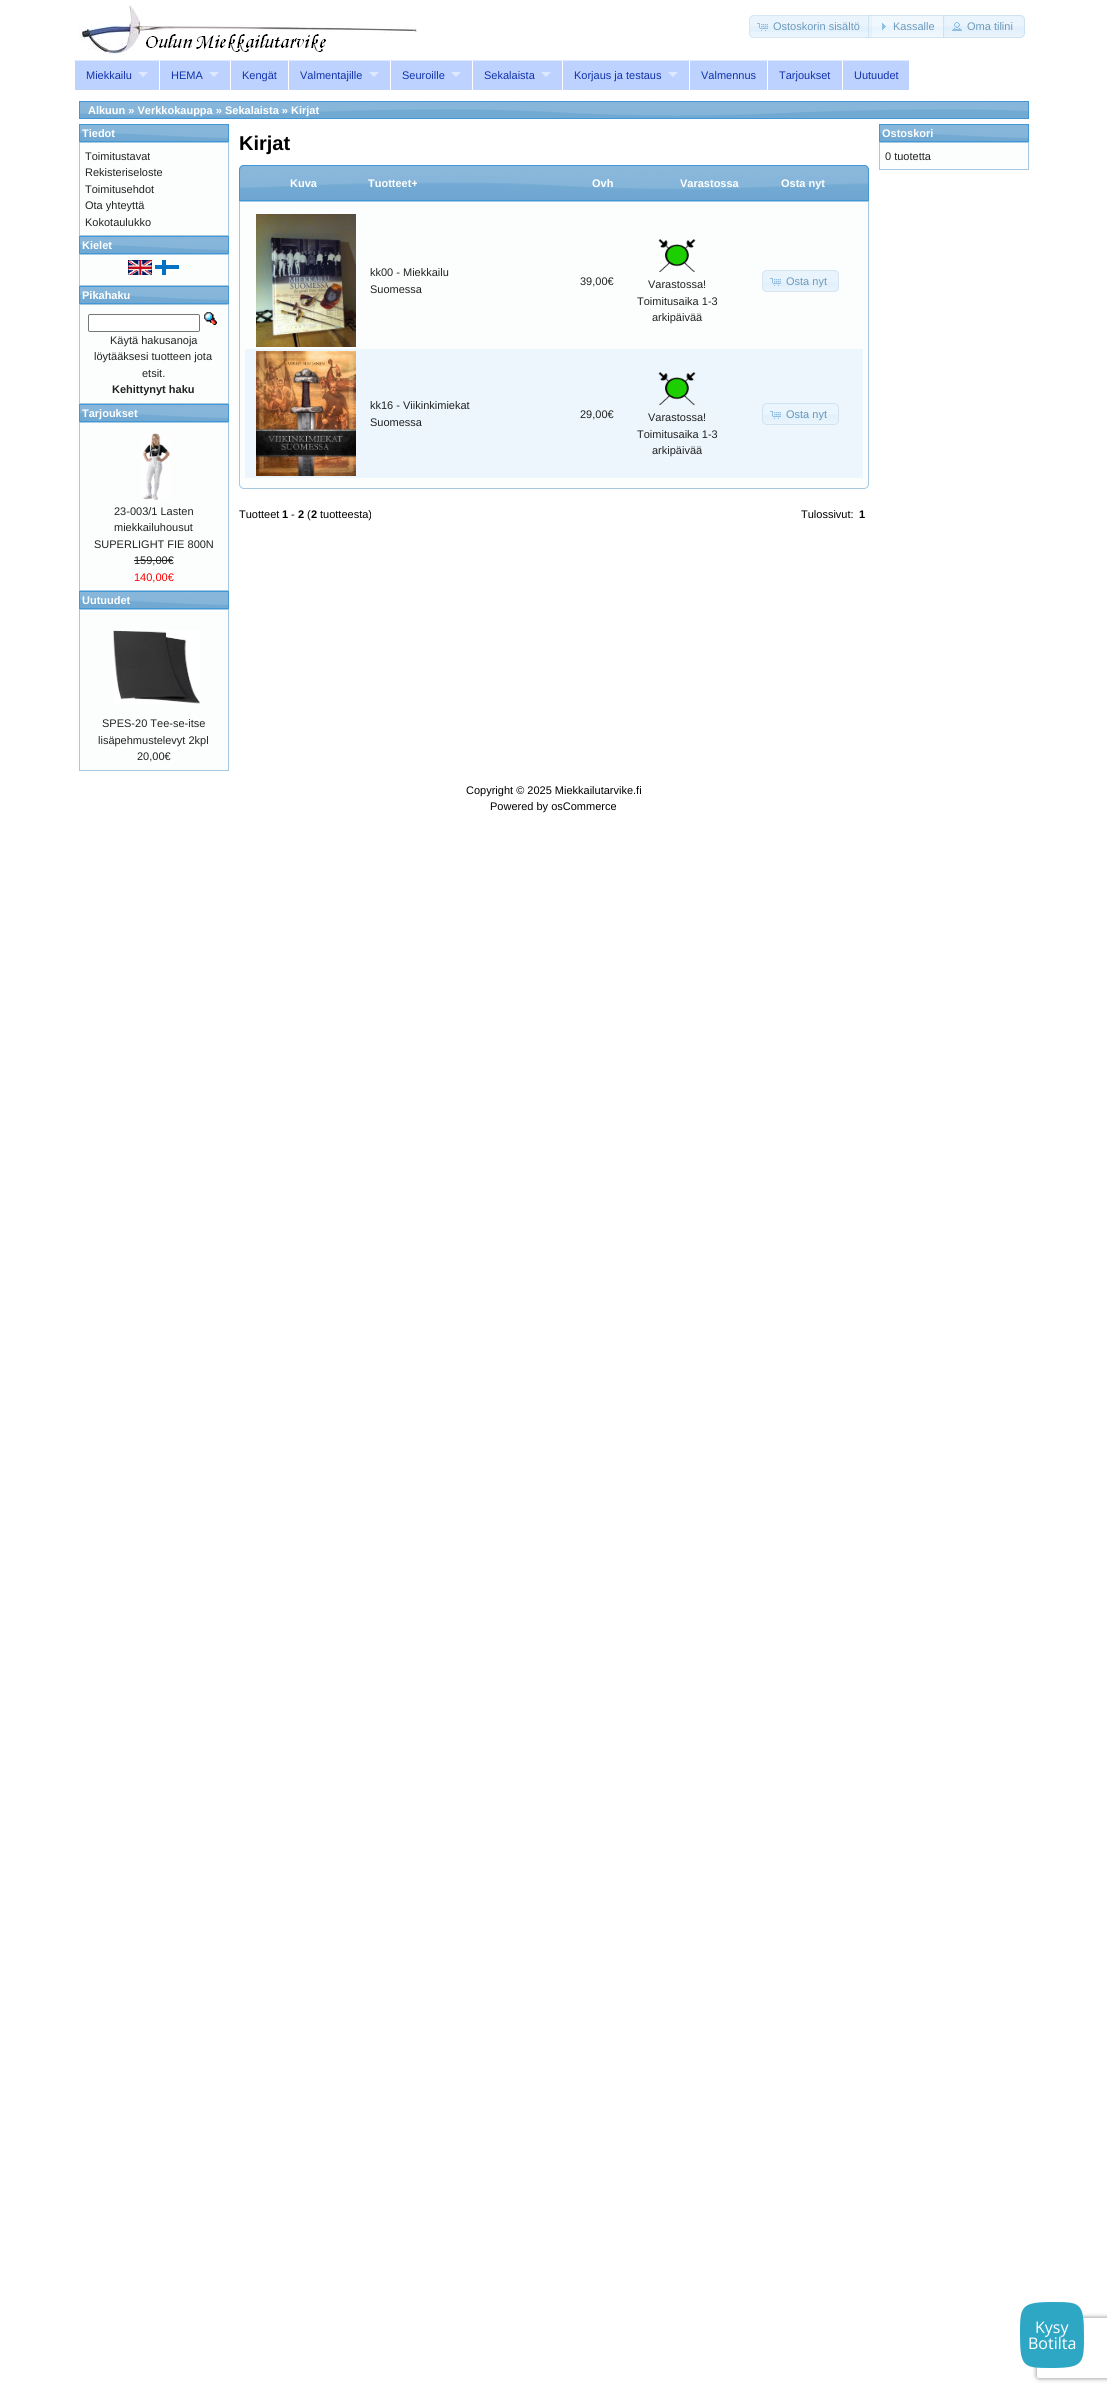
import math
import cairocffi as cairo

surface = cairo.ImageSurface(cairo.FORMAT_RGB24, 1107, 2392)
cr = cairo.Context(surface)
options = cairo.FontOptions()
options.set_hint_metrics(cairo.HINT_METRICS_OFF)
options.set_hint_style(cairo.HINT_STYLE_NONE)
cr.set_font_options(options)
cr.set_miter_limit(4)


def use_color(code):
    cr.set_source_rgb(*(v / 255 for v in bytes.fromhex(code[-6:])))


def round_rect(x, y, w, h, r):
    cr.new_sub_path()
    for i, (u, v) in enumerate([(x + w - r, y + h - r), (x + r, y + h - r), (x + r, y + r), (x + w - r, y + r)]):
        cr.arc(u, v, r, i * math.pi / 2, (i + 1) * math.pi / 2)
    cr.close_path()


def shadow(x, y, w, h, r, blur, alpha):
    cr.push_group_with_content(cairo.CONTENT_ALPHA)
    cr.set_operator(cairo.OPERATOR_SOURCE)
    for i in range(15, -16, -2):
        e = blur * i / 6
        if min(w, h) + 2 * e > 0:
            cr.set_source_rgba(0, 0, 0, alpha * math.erfc((i - 1) / 8.5) / 2)
            round_rect(x - e, y - e, w + 2 * e, h + 2 * e, max(0, min(r + e + blur * .6, min(w, h) / 2 + e)))
            cr.fill()
    cr.mask(cr.pop_group())


def picture(path, x, y, w, h):
    cr.save()
    cr.set_source_surface(cairo.ImageSurface.create_from_png(path), x, y)
    cr.rectangle(x, y, w, h)
    cr.fill()
    cr.restore()


use_color("#ffffff")
cr.paint()
picture("img1.png", 79, 5, 339, 53)
use_color("#e9f4fd")
cr.new_path()
cr.move_to(754, 15)
cr.line_to(872, 15)
cr.line_to(872, 38)
cr.line_to(754, 38)
cr.curve_to(751, 38, 749, 36, 749, 33)
cr.line_to(749, 20)
cr.curve_to(749, 17, 751, 15, 754, 15)
cr.close_path()
cr.fill()
use_color("#e3f1fc")
cr.rectangle(749, 26, 123, 6)
cr.fill()
cr.new_path()
cr.move_to(754, 15.5)
cr.line_to(871.5, 15.5)
cr.line_to(871.5, 37.5)
cr.line_to(754, 37.5)
cr.curve_to(751.5, 37.5, 749.5, 35.5, 749.5, 33)
cr.line_to(749.5, 20)
cr.curve_to(749.5, 17.5, 751.5, 15.5, 754, 15.5)
cr.close_path()
use_color("#d6e6f2")
cr.set_line_width(1)
cr.stroke()
picture("img2.png", 757, 23, 11, 8)
cr.select_font_face("Liberation Sans")
cr.set_font_size(11)
use_color("#6d9abb")
cr.move_to(773, 30)
cr.show_text("Ostoskorin sisältö")
picture("img3.png", 868, 15, 78, 23)
cr.rectangle(868.5, 15.5, 77, 22)
cr.set_source_rgba(0.773, 0.859, 0.925, 0.7)
cr.stroke()
picture("img4.png", 882, 23, 4, 7)
use_color("#6d9abb")
cr.move_to(893, 30)
cr.show_text("Kassalle")
cr.set_source_rgba(0.875, 0.937, 0.988, 0.7)
cr.new_path()
cr.move_to(943, 15)
cr.line_to(1020, 15)
cr.curve_to(1023, 15, 1025, 17, 1025, 20)
cr.line_to(1025, 33)
cr.curve_to(1025, 36, 1023, 38, 1020, 38)
cr.line_to(943, 38)
cr.close_path()
cr.fill()
picture("img5.png", 943, 15, 82, 23)
cr.new_path()
cr.move_to(943.5, 15.5)
cr.line_to(1020, 15.5)
cr.curve_to(1022.5, 15.5, 1024.5, 17.5, 1024.5, 20)
cr.line_to(1024.5, 33)
cr.curve_to(1024.5, 35.5, 1022.5, 37.5, 1020, 37.5)
cr.line_to(943.5, 37.5)
cr.close_path()
cr.set_source_rgba(0.773, 0.859, 0.925, 0.7)
cr.stroke()
picture("img6.png", 952, 22, 10, 9)
use_color("#6d9abb")
cr.move_to(967, 30)
cr.show_text("Oma tilini")
use_color("#bdd2ff")
cr.rectangle(74, 60, 835, 30)
cr.fill()
use_color("#dee9ff")
cr.new_path()
cr.move_to(74, 60)
cr.line_to(159, 60)
cr.line_to(159, 61)
cr.line_to(75, 61)
cr.close_path()
cr.fill()
use_color("#ffffff")
cr.new_path()
cr.move_to(74, 90)
cr.line_to(74, 60)
cr.line_to(75, 61)
cr.line_to(75, 90)
cr.close_path()
cr.fill()
use_color("#1133aa")
cr.move_to(86, 79)
cr.show_text("Miekkailu")
use_color("#dee9ff")
cr.new_path()
cr.move_to(138, 72)
cr.line_to(148, 72)
cr.line_to(143, 77)
cr.close_path()
cr.fill()
cr.new_path()
cr.move_to(159, 60)
cr.line_to(230, 60)
cr.line_to(230, 61)
cr.line_to(160, 61)
cr.close_path()
cr.fill()
use_color("#ffffff")
cr.new_path()
cr.move_to(159, 90)
cr.line_to(159, 60)
cr.line_to(160, 61)
cr.line_to(160, 90)
cr.close_path()
cr.fill()
use_color("#1133aa")
cr.move_to(171, 79)
cr.show_text("HEMA")
use_color("#dee9ff")
cr.new_path()
cr.move_to(209, 72)
cr.line_to(219, 72)
cr.line_to(214, 77)
cr.close_path()
cr.fill()
cr.new_path()
cr.move_to(230, 60)
cr.line_to(288, 60)
cr.line_to(288, 61)
cr.line_to(231, 61)
cr.close_path()
cr.fill()
use_color("#ffffff")
cr.new_path()
cr.move_to(230, 90)
cr.line_to(230, 60)
cr.line_to(231, 61)
cr.line_to(231, 90)
cr.close_path()
cr.fill()
use_color("#1133aa")
cr.move_to(242, 79)
cr.show_text("Kengät")
use_color("#dee9ff")
cr.new_path()
cr.move_to(288, 60)
cr.line_to(390, 60)
cr.line_to(390, 61)
cr.line_to(289, 61)
cr.close_path()
cr.fill()
use_color("#ffffff")
cr.new_path()
cr.move_to(288, 90)
cr.line_to(288, 60)
cr.line_to(289, 61)
cr.line_to(289, 90)
cr.close_path()
cr.fill()
use_color("#1133aa")
cr.move_to(300, 79)
cr.show_text("Valmentajille")
use_color("#dee9ff")
cr.new_path()
cr.move_to(369, 72)
cr.line_to(379, 72)
cr.line_to(374, 77)
cr.close_path()
cr.fill()
cr.new_path()
cr.move_to(390, 60)
cr.line_to(472, 60)
cr.line_to(472, 61)
cr.line_to(391, 61)
cr.close_path()
cr.fill()
use_color("#ffffff")
cr.new_path()
cr.move_to(390, 90)
cr.line_to(390, 60)
cr.line_to(391, 61)
cr.line_to(391, 90)
cr.close_path()
cr.fill()
use_color("#1133aa")
cr.move_to(402, 79)
cr.show_text("Seuroille")
use_color("#dee9ff")
cr.new_path()
cr.move_to(451, 72)
cr.line_to(461, 72)
cr.line_to(456, 77)
cr.close_path()
cr.fill()
cr.new_path()
cr.move_to(472, 60)
cr.line_to(562, 60)
cr.line_to(562, 61)
cr.line_to(473, 61)
cr.close_path()
cr.fill()
use_color("#ffffff")
cr.new_path()
cr.move_to(472, 90)
cr.line_to(472, 60)
cr.line_to(473, 61)
cr.line_to(473, 90)
cr.close_path()
cr.fill()
use_color("#1133aa")
cr.move_to(484, 79)
cr.show_text("Sekalaista")
use_color("#dee9ff")
cr.new_path()
cr.move_to(541, 72)
cr.line_to(551, 72)
cr.line_to(546, 77)
cr.close_path()
cr.fill()
cr.new_path()
cr.move_to(562, 60)
cr.line_to(689, 60)
cr.line_to(689, 61)
cr.line_to(563, 61)
cr.close_path()
cr.fill()
use_color("#ffffff")
cr.new_path()
cr.move_to(562, 90)
cr.line_to(562, 60)
cr.line_to(563, 61)
cr.line_to(563, 90)
cr.close_path()
cr.fill()
use_color("#1133aa")
cr.move_to(574, 79)
cr.show_text("Korjaus ja testaus")
use_color("#dee9ff")
cr.new_path()
cr.move_to(668, 72)
cr.line_to(678, 72)
cr.line_to(673, 77)
cr.close_path()
cr.fill()
cr.new_path()
cr.move_to(689, 60)
cr.line_to(767, 60)
cr.line_to(767, 61)
cr.line_to(690, 61)
cr.close_path()
cr.fill()
use_color("#ffffff")
cr.new_path()
cr.move_to(689, 90)
cr.line_to(689, 60)
cr.line_to(690, 61)
cr.line_to(690, 90)
cr.close_path()
cr.fill()
use_color("#1133aa")
cr.move_to(701, 79)
cr.show_text("Valmennus")
use_color("#dee9ff")
cr.new_path()
cr.move_to(767, 60)
cr.line_to(842, 60)
cr.line_to(842, 61)
cr.line_to(768, 61)
cr.close_path()
cr.fill()
use_color("#ffffff")
cr.new_path()
cr.move_to(767, 90)
cr.line_to(767, 60)
cr.line_to(768, 61)
cr.line_to(768, 90)
cr.close_path()
cr.fill()
use_color("#1133aa")
cr.move_to(779, 79)
cr.show_text("Tarjoukset")
use_color("#dee9ff")
cr.new_path()
cr.move_to(842, 60)
cr.line_to(909, 60)
cr.line_to(909, 61)
cr.line_to(843, 61)
cr.close_path()
cr.fill()
use_color("#ffffff")
cr.new_path()
cr.move_to(842, 90)
cr.line_to(842, 60)
cr.line_to(843, 61)
cr.line_to(843, 90)
cr.close_path()
cr.fill()
use_color("#1133aa")
cr.move_to(854, 79)
cr.show_text("Uutuudet")
picture("img7.png", 80, 102, 948, 16)
cr.rectangle(79.5, 101.5, 949, 17)
use_color("#4297d7")
cr.stroke()
cr.select_font_face("Liberation Sans", cairo.FONT_SLANT_NORMAL, cairo.FONT_WEIGHT_BOLD)
use_color("#ffffff")
cr.move_to(88, 114)
cr.show_text("Alkuun » Verkkokauppa » Sekalaista » Kirjat")
picture("img8.png", 80, 125, 148, 16)
cr.rectangle(79.5, 124.5, 149, 17)
use_color("#4297d7")
cr.stroke()
use_color("#ffffff")
cr.move_to(82, 137)
cr.show_text("Tiedot")
use_color("#fcfdfd")
cr.rectangle(79.5, 142.5, 149, 93)
cr.fill_preserve()
use_color("#a6c9e2")
cr.stroke()
cr.select_font_face("Liberation Sans")
use_color("#222222")
cr.move_to(85, 160)
cr.show_text("Toimitustavat")
cr.move_to(85, 176)
cr.show_text("Rekisteriseloste")
cr.move_to(85, 193)
cr.show_text("Toimitusehdot")
cr.move_to(85, 209)
cr.show_text("Ota yhteyttä")
cr.move_to(85, 226)
cr.show_text("Kokotaulukko")
picture("img8.png", 80, 237, 148, 16)
cr.rectangle(79.5, 236.5, 149, 17)
use_color("#4297d7")
cr.stroke()
cr.select_font_face("Liberation Sans", cairo.FONT_SLANT_NORMAL, cairo.FONT_WEIGHT_BOLD)
use_color("#ffffff")
cr.move_to(82, 249)
cr.show_text("Kielet")
use_color("#fcfdfd")
cr.rectangle(79.5, 254.5, 149, 31)
cr.fill_preserve()
use_color("#a6c9e2")
cr.stroke()
picture("img9.png", 128, 260, 24, 15)
picture("img10.png", 155, 260, 24, 15)
picture("img8.png", 80, 287, 148, 16)
cr.rectangle(79.5, 286.5, 149, 17)
use_color("#4297d7")
cr.stroke()
use_color("#ffffff")
cr.move_to(82, 299)
cr.show_text("Pikahaku")
use_color("#fcfdfd")
cr.rectangle(79.5, 304.5, 149, 99)
cr.fill_preserve()
use_color("#a6c9e2")
cr.stroke()
use_color("#ffffff")
round_rect(88.5, 314.5, 111, 17, 1.5)
cr.fill_preserve()
use_color("#767676")
cr.stroke()
picture("img11.png", 204, 312, 13, 13)
cr.select_font_face("Liberation Sans")
use_color("#222222")
cr.move_to(110, 344)
cr.show_text("Käytä hakusanoja")
cr.move_to(94, 360)
cr.show_text("löytääksesi tuotteen jota")
cr.move_to(142, 377)
cr.show_text("etsit.")
cr.select_font_face("Liberation Sans", cairo.FONT_SLANT_NORMAL, cairo.FONT_WEIGHT_BOLD)
cr.move_to(112, 393)
cr.show_text("Kehittynyt haku")
picture("img8.png", 80, 405, 148, 16)
cr.rectangle(79.5, 404.5, 149, 17)
use_color("#4297d7")
cr.stroke()
use_color("#ffffff")
cr.move_to(82, 417)
cr.show_text("Tarjoukset")
use_color("#fcfdfd")
cr.rectangle(79.5, 422.5, 149, 168)
cr.fill_preserve()
use_color("#a6c9e2")
cr.stroke()
picture("img12.png", 142, 433, 28, 67)
cr.select_font_face("Liberation Sans")
use_color("#222222")
cr.move_to(114, 515)
cr.show_text("23-003/1 Lasten")
cr.move_to(114, 531)
cr.show_text("miekkailuhousut")
cr.move_to(94, 548)
cr.show_text("SUPERLIGHT FIE 800N")
cr.move_to(134, 564)
cr.show_text("159,00€")
cr.rectangle(134, 560, 39, 1)
cr.fill()
use_color("#ff0000")
cr.move_to(134, 581)
cr.show_text("140,00€")
picture("img8.png", 80, 592, 148, 16)
cr.rectangle(79.5, 591.5, 149, 17)
use_color("#4297d7")
cr.stroke()
cr.select_font_face("Liberation Sans", cairo.FONT_SLANT_NORMAL, cairo.FONT_WEIGHT_BOLD)
use_color("#ffffff")
cr.move_to(82, 604)
cr.show_text("Uutuudet")
use_color("#fcfdfd")
cr.rectangle(79.5, 609.5, 149, 161)
cr.fill_preserve()
use_color("#a6c9e2")
cr.stroke()
picture("img13.png", 113, 630, 87, 74)
cr.select_font_face("Liberation Sans")
use_color("#222222")
cr.move_to(102, 727)
cr.show_text("SPES-20 Tee-se-itse")
cr.move_to(98, 744)
cr.show_text("lisäpehmustelevyt 2kpl")
cr.move_to(137, 760)
cr.show_text("20,00€")
cr.select_font_face("Liberation Sans", cairo.FONT_SLANT_NORMAL, cairo.FONT_WEIGHT_BOLD)
cr.set_font_size(20)
use_color("#000000")
cr.move_to(239, 150)
cr.show_text("Kirjat")
picture("img14.png", 239, 165, 630, 35)
cr.new_path()
cr.move_to(244, 165.5)
cr.line_to(864, 165.5)
cr.curve_to(866.5, 165.5, 868.5, 167.5, 868.5, 170)
cr.line_to(868.5, 200.5)
cr.line_to(239.5, 200.5)
cr.line_to(239.5, 170)
cr.curve_to(239.5, 167.5, 241.5, 165.5, 244, 165.5)
cr.close_path()
use_color("#4297d7")
cr.stroke()
cr.set_font_size(11)
use_color("#ffffff")
cr.move_to(290, 187)
cr.show_text("Kuva")
cr.move_to(368, 187)
cr.show_text("Tuotteet+")
cr.move_to(592, 187)
cr.show_text("Ovh")
cr.move_to(680, 187)
cr.show_text("Varastossa")
cr.move_to(781, 187)
cr.show_text("Osta nyt")
use_color("#fcfdfd")
cr.new_path()
cr.move_to(239.5, 201.5)
cr.line_to(868.5, 201.5)
cr.line_to(868.5, 484)
cr.curve_to(868.5, 486.5, 866.5, 488.5, 864, 488.5)
cr.line_to(244, 488.5)
cr.curve_to(241.5, 488.5, 239.5, 486.5, 239.5, 484)
cr.close_path()
cr.fill_preserve()
use_color("#a6c9e2")
cr.stroke()
picture("img15.png", 256, 214, 100, 133)
cr.select_font_face("Liberation Sans")
use_color("#222222")
cr.move_to(370, 276)
cr.show_text("kk00 - Miekkailu")
cr.move_to(370, 293)
cr.show_text("Suomessa")
cr.move_to(580, 285)
cr.show_text("39,00€")
picture("img16.png", 658, 239, 38, 34)
cr.move_to(648, 288)
cr.show_text("Varastossa!")
cr.move_to(637, 305)
cr.show_text("Toimitusaika 1-3")
cr.move_to(652, 321)
cr.show_text("arkipäivää")
use_color("#e8f3fc")
round_rect(762, 270, 77, 22, 5)
cr.fill()
picture("img17.png", 762, 282, 77, 7)
round_rect(762.5, 270.5, 76, 21, 4.5)
use_color("#d6e5f1")
cr.stroke()
picture("img18.png", 770, 278, 11, 8)
use_color("#6d9abb")
cr.move_to(786, 285)
cr.show_text("Osta nyt")
use_color("#ecf6fc")
cr.rectangle(245, 349, 618, 129)
cr.fill()
picture("img19.png", 256, 351, 100, 125)
use_color("#222222")
cr.move_to(370, 409)
cr.show_text("kk16 - Viikinkimiekat")
cr.move_to(370, 426)
cr.show_text("Suomessa")
cr.move_to(580, 418)
cr.show_text("29,00€")
picture("img20.png", 658, 372, 38, 34)
cr.move_to(648, 421)
cr.show_text("Varastossa!")
cr.move_to(637, 438)
cr.show_text("Toimitusaika 1-3")
cr.move_to(652, 454)
cr.show_text("arkipäivää")
picture("img21.png", 762, 403, 77, 22)
round_rect(762.5, 403.5, 76, 21, 4.5)
use_color("#d1e3f1")
cr.stroke()
picture("img22.png", 770, 411, 11, 8)
use_color("#6797ba")
cr.move_to(786, 418)
cr.show_text("Osta nyt")
use_color("#000000")
cr.move_to(239, 518)
cr.show_text("Tuotteet")
cr.select_font_face("Liberation Sans", cairo.FONT_SLANT_NORMAL, cairo.FONT_WEIGHT_BOLD)
cr.move_to(282, 518)
cr.show_text("1")
cr.select_font_face("Liberation Sans")
cr.move_to(291, 518)
cr.show_text("-")
cr.select_font_face("Liberation Sans", cairo.FONT_SLANT_NORMAL, cairo.FONT_WEIGHT_BOLD)
cr.move_to(298, 518)
cr.show_text("2")
cr.select_font_face("Liberation Sans")
cr.move_to(307, 518)
cr.show_text("(")
cr.select_font_face("Liberation Sans", cairo.FONT_SLANT_NORMAL, cairo.FONT_WEIGHT_BOLD)
cr.move_to(311, 518)
cr.show_text("2")
cr.select_font_face("Liberation Sans")
cr.move_to(320, 518)
cr.show_text("tuotteesta)")
cr.move_to(801, 518)
cr.show_text("Tulossivut:")
cr.select_font_face("Liberation Sans", cairo.FONT_SLANT_NORMAL, cairo.FONT_WEIGHT_BOLD)
cr.move_to(859, 518)
cr.show_text("1")
picture("img8.png", 880, 125, 148, 16)
cr.rectangle(879.5, 124.5, 149, 17)
use_color("#4297d7")
cr.stroke()
use_color("#ffffff")
cr.move_to(882, 137)
cr.show_text("Ostoskori")
use_color("#fcfdfd")
cr.rectangle(879.5, 142.5, 149, 27)
cr.fill_preserve()
use_color("#a6c9e2")
cr.stroke()
cr.select_font_face("Liberation Sans")
use_color("#222222")
cr.move_to(885, 160)
cr.show_text("0 tuotetta")
use_color("#000000")
cr.move_to(466, 794)
cr.show_text("Copyright © 2025 Miekkailutarvike.fi")
cr.move_to(490, 810)
cr.show_text("Powered by osCommerce")
cr.save()
cr.set_fill_rule(cairo.FILL_RULE_EVEN_ODD)
cr.new_path()
cr.move_to(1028, 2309)
cr.line_to(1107, 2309)
cr.line_to(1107, 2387)
cr.line_to(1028, 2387)
cr.close_path()
cr.move_to(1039, 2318)
cr.line_to(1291, 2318)
cr.curve_to(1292, 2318, 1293, 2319, 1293, 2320)
cr.line_to(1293, 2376)
cr.curve_to(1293, 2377, 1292, 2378, 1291, 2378)
cr.line_to(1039, 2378)
cr.curve_to(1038, 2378, 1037, 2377, 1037, 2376)
cr.line_to(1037, 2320)
cr.curve_to(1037, 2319, 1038, 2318, 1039, 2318)
cr.close_path()
cr.clip()
use_color("#808080")
shadow(1037, 2318, 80, 60, 2, 2.5, 1)
cr.restore()
use_color("#2ea7c5")
cr.new_path()
cr.move_to(1052, 2302)
cr.curve_to(1080, 2302, 1084, 2302, 1084, 2335)
cr.curve_to(1084, 2363, 1084, 2368, 1052, 2368)
cr.curve_to(1024, 2368, 1020, 2368, 1020, 2335)
cr.curve_to(1020, 2307, 1020, 2302, 1052, 2302)
cr.close_path()
cr.fill()
cr.select_font_face("Open Sans")
cr.set_font_size(16)
use_color("#ffffff")
cr.move_to(1035, 2333)
cr.show_text("Kysy")
cr.move_to(1028, 2349)
cr.show_text("Botilta")
surface.write_to_png("result.png")
